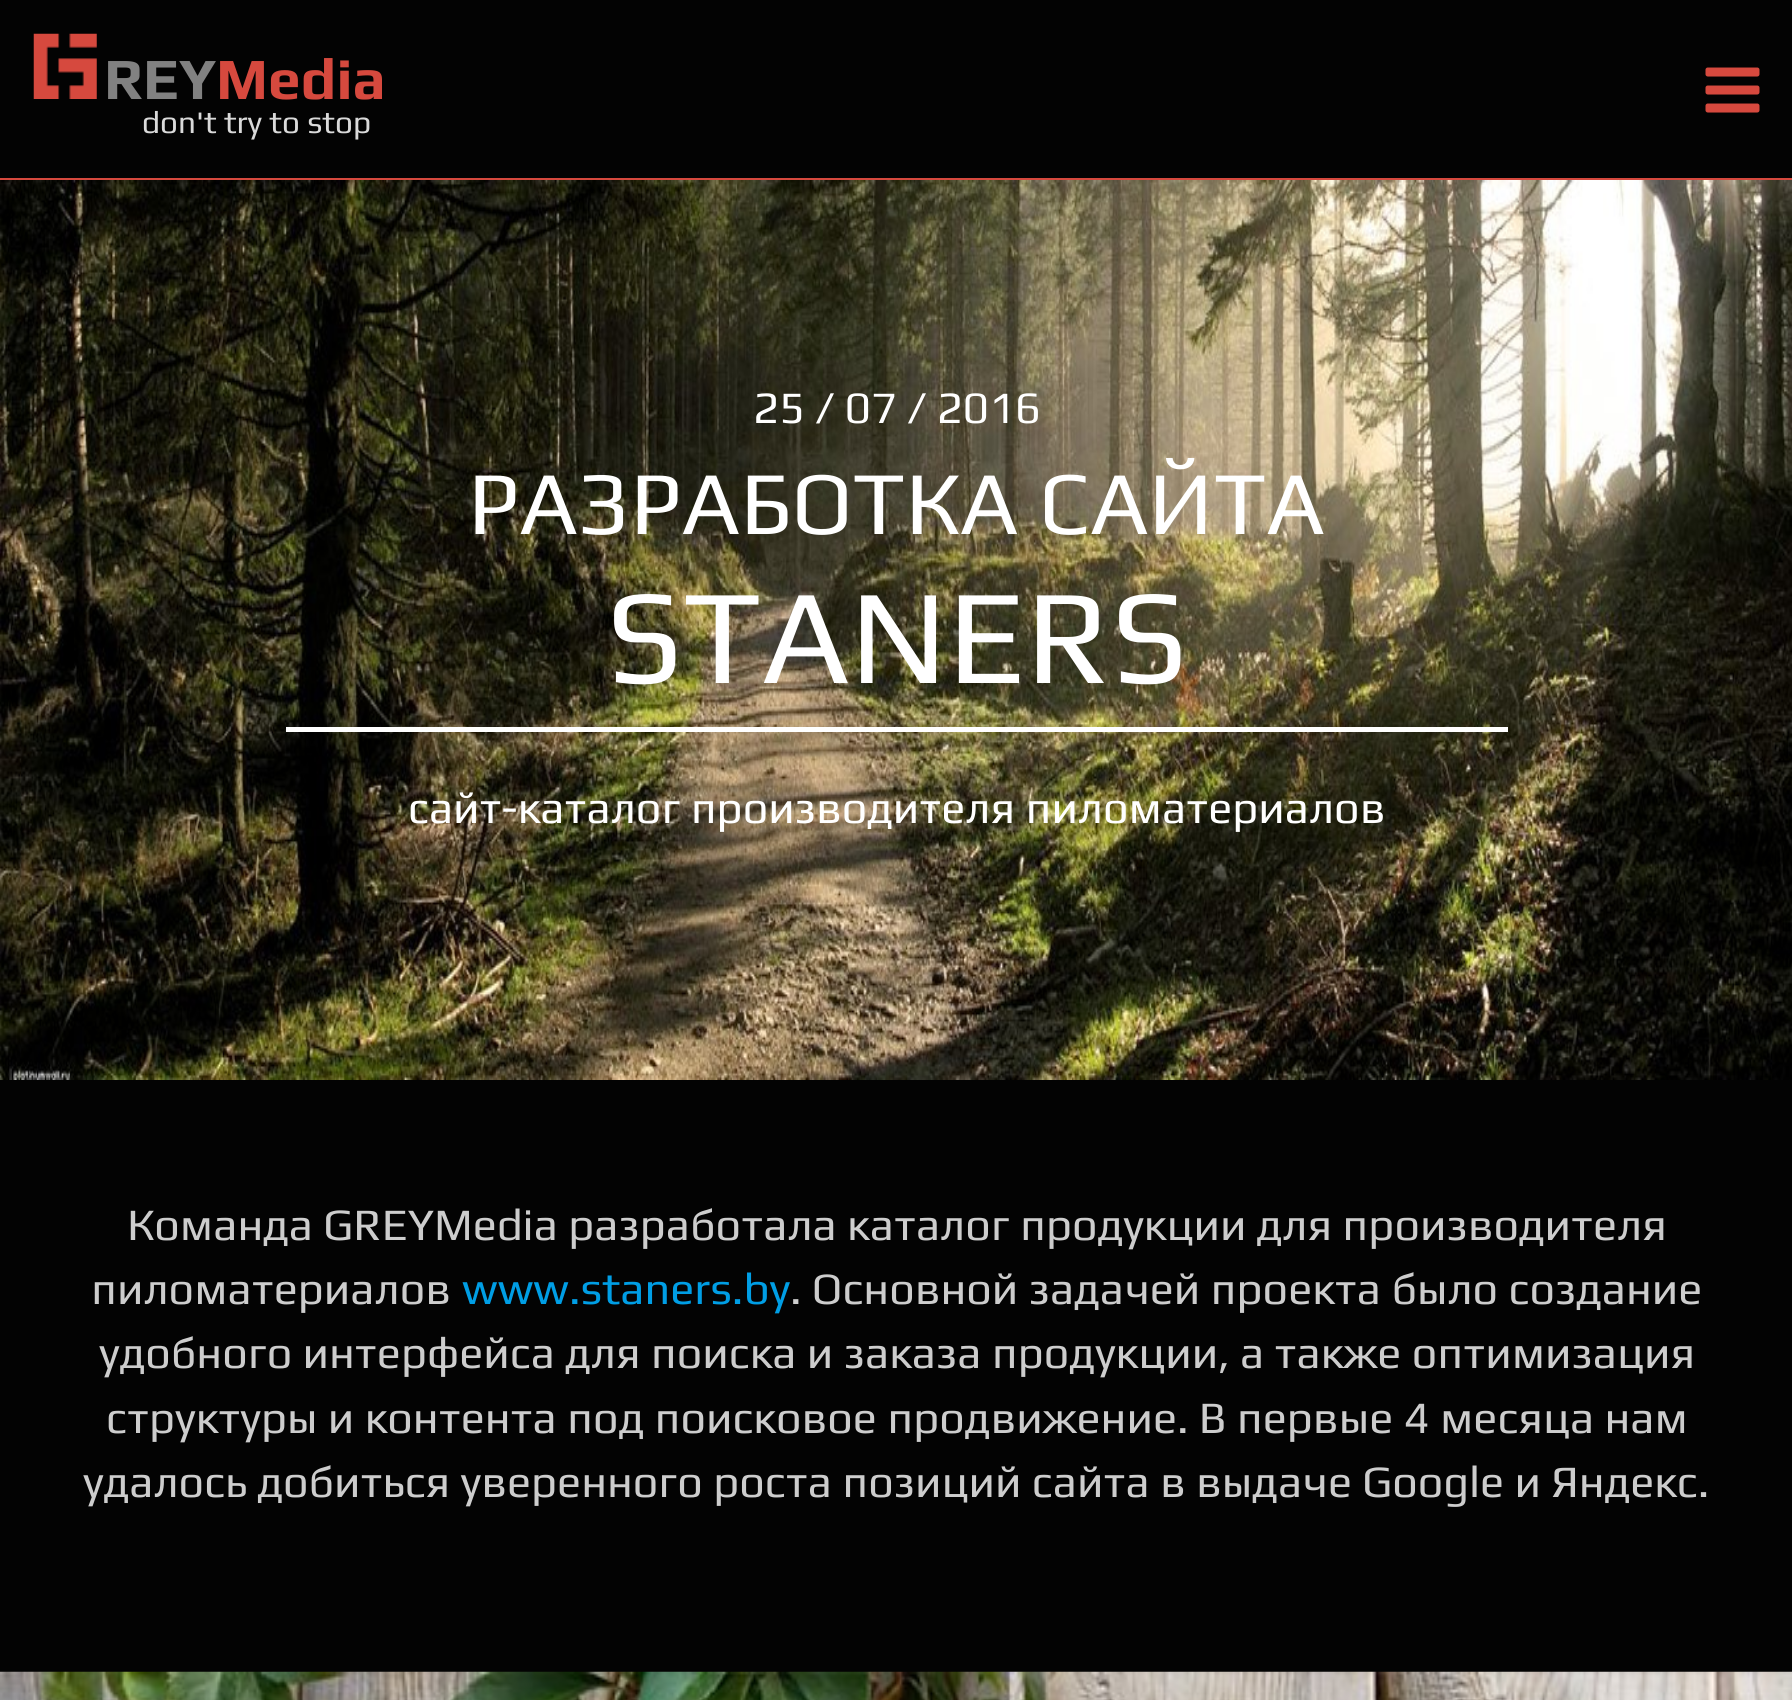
import math
import cairocffi as cairo

surface = cairo.ImageSurface(cairo.FORMAT_RGB24, 1792, 1700)
cr = cairo.Context(surface)
options = cairo.FontOptions()
options.set_hint_metrics(cairo.HINT_METRICS_OFF)
options.set_hint_style(cairo.HINT_STYLE_NONE)
cr.set_font_options(options)
cr.set_miter_limit(4)


def use_color(code):
    cr.set_source_rgb(*(v / 255 for v in bytes.fromhex(code[-6:])))


def picture(path, x, y, w, h):
    cr.save()
    cr.set_source_surface(cairo.ImageSurface.create_from_png(path), x, y)
    cr.rectangle(x, y, w, h)
    cr.fill()
    cr.restore()


use_color("#030303")
cr.paint()
use_color("#d6493e")
cr.rectangle(0, 178, 1792, 2)
cr.fill()
picture("img1.png", 33, 33, 64, 66)
cr.select_font_face("Play", cairo.FONT_SLANT_NORMAL, cairo.FONT_WEIGHT_BOLD)
cr.set_font_size(58.5)
use_color("#818181")
cr.move_to(104, 99)
cr.show_text("REY")
use_color("#d6493e")
cr.move_to(216, 99)
cr.show_text("Media")
cr.select_font_face("Play")
cr.set_font_size(31.5)
use_color("#dadada")
cr.move_to(142, 133)
cr.show_text("don't try to stop")
picture("img2.png", 1705, 67, 55, 46)
picture("img3.png", 0, 180, 1792, 900)
cr.set_font_size(45)
use_color("#ffffff")
cr.move_to(753, 423)
cr.show_text("25 / 07 / 2016")
cr.set_font_size(90)
cr.move_to(468, 534)
cr.show_text("РАЗРАБОТКА САЙТА")
cr.set_font_size(135)
cr.move_to(606, 683)
cr.show_text("STANERS")
cr.rectangle(286, 727, 1222, 5)
cr.fill()
cr.set_font_size(45)
cr.move_to(408, 823)
cr.show_text("сайт-каталог производителя пиломатериалов")
use_color("#cdcdcd")
cr.move_to(127, 1240)
cr.show_text("Команда GREYMedia разработала каталог продукции для производителя")
cr.move_to(91, 1304)
cr.show_text("пиломатериалов")
use_color("#009ee5")
cr.move_to(462, 1304)
cr.show_text("www.staners.by")
use_color("#cdcdcd")
cr.move_to(790, 1304)
cr.show_text(". Основной задачей проекта было создание")
cr.move_to(99, 1368)
cr.show_text("удобного интерфейса для поиска и заказа продукции, а также оптимизация")
cr.move_to(106, 1433)
cr.show_text("структуры и контента под поисковое продвижение. В первые 4 месяца нам")
cr.move_to(83, 1497)
cr.show_text("удалось добиться уверенного роста позиций сайта в выдаче Google и Яндекс.")
picture("img4.png", 0, 1671, 1792, 29)
surface.write_to_png("result.png")
